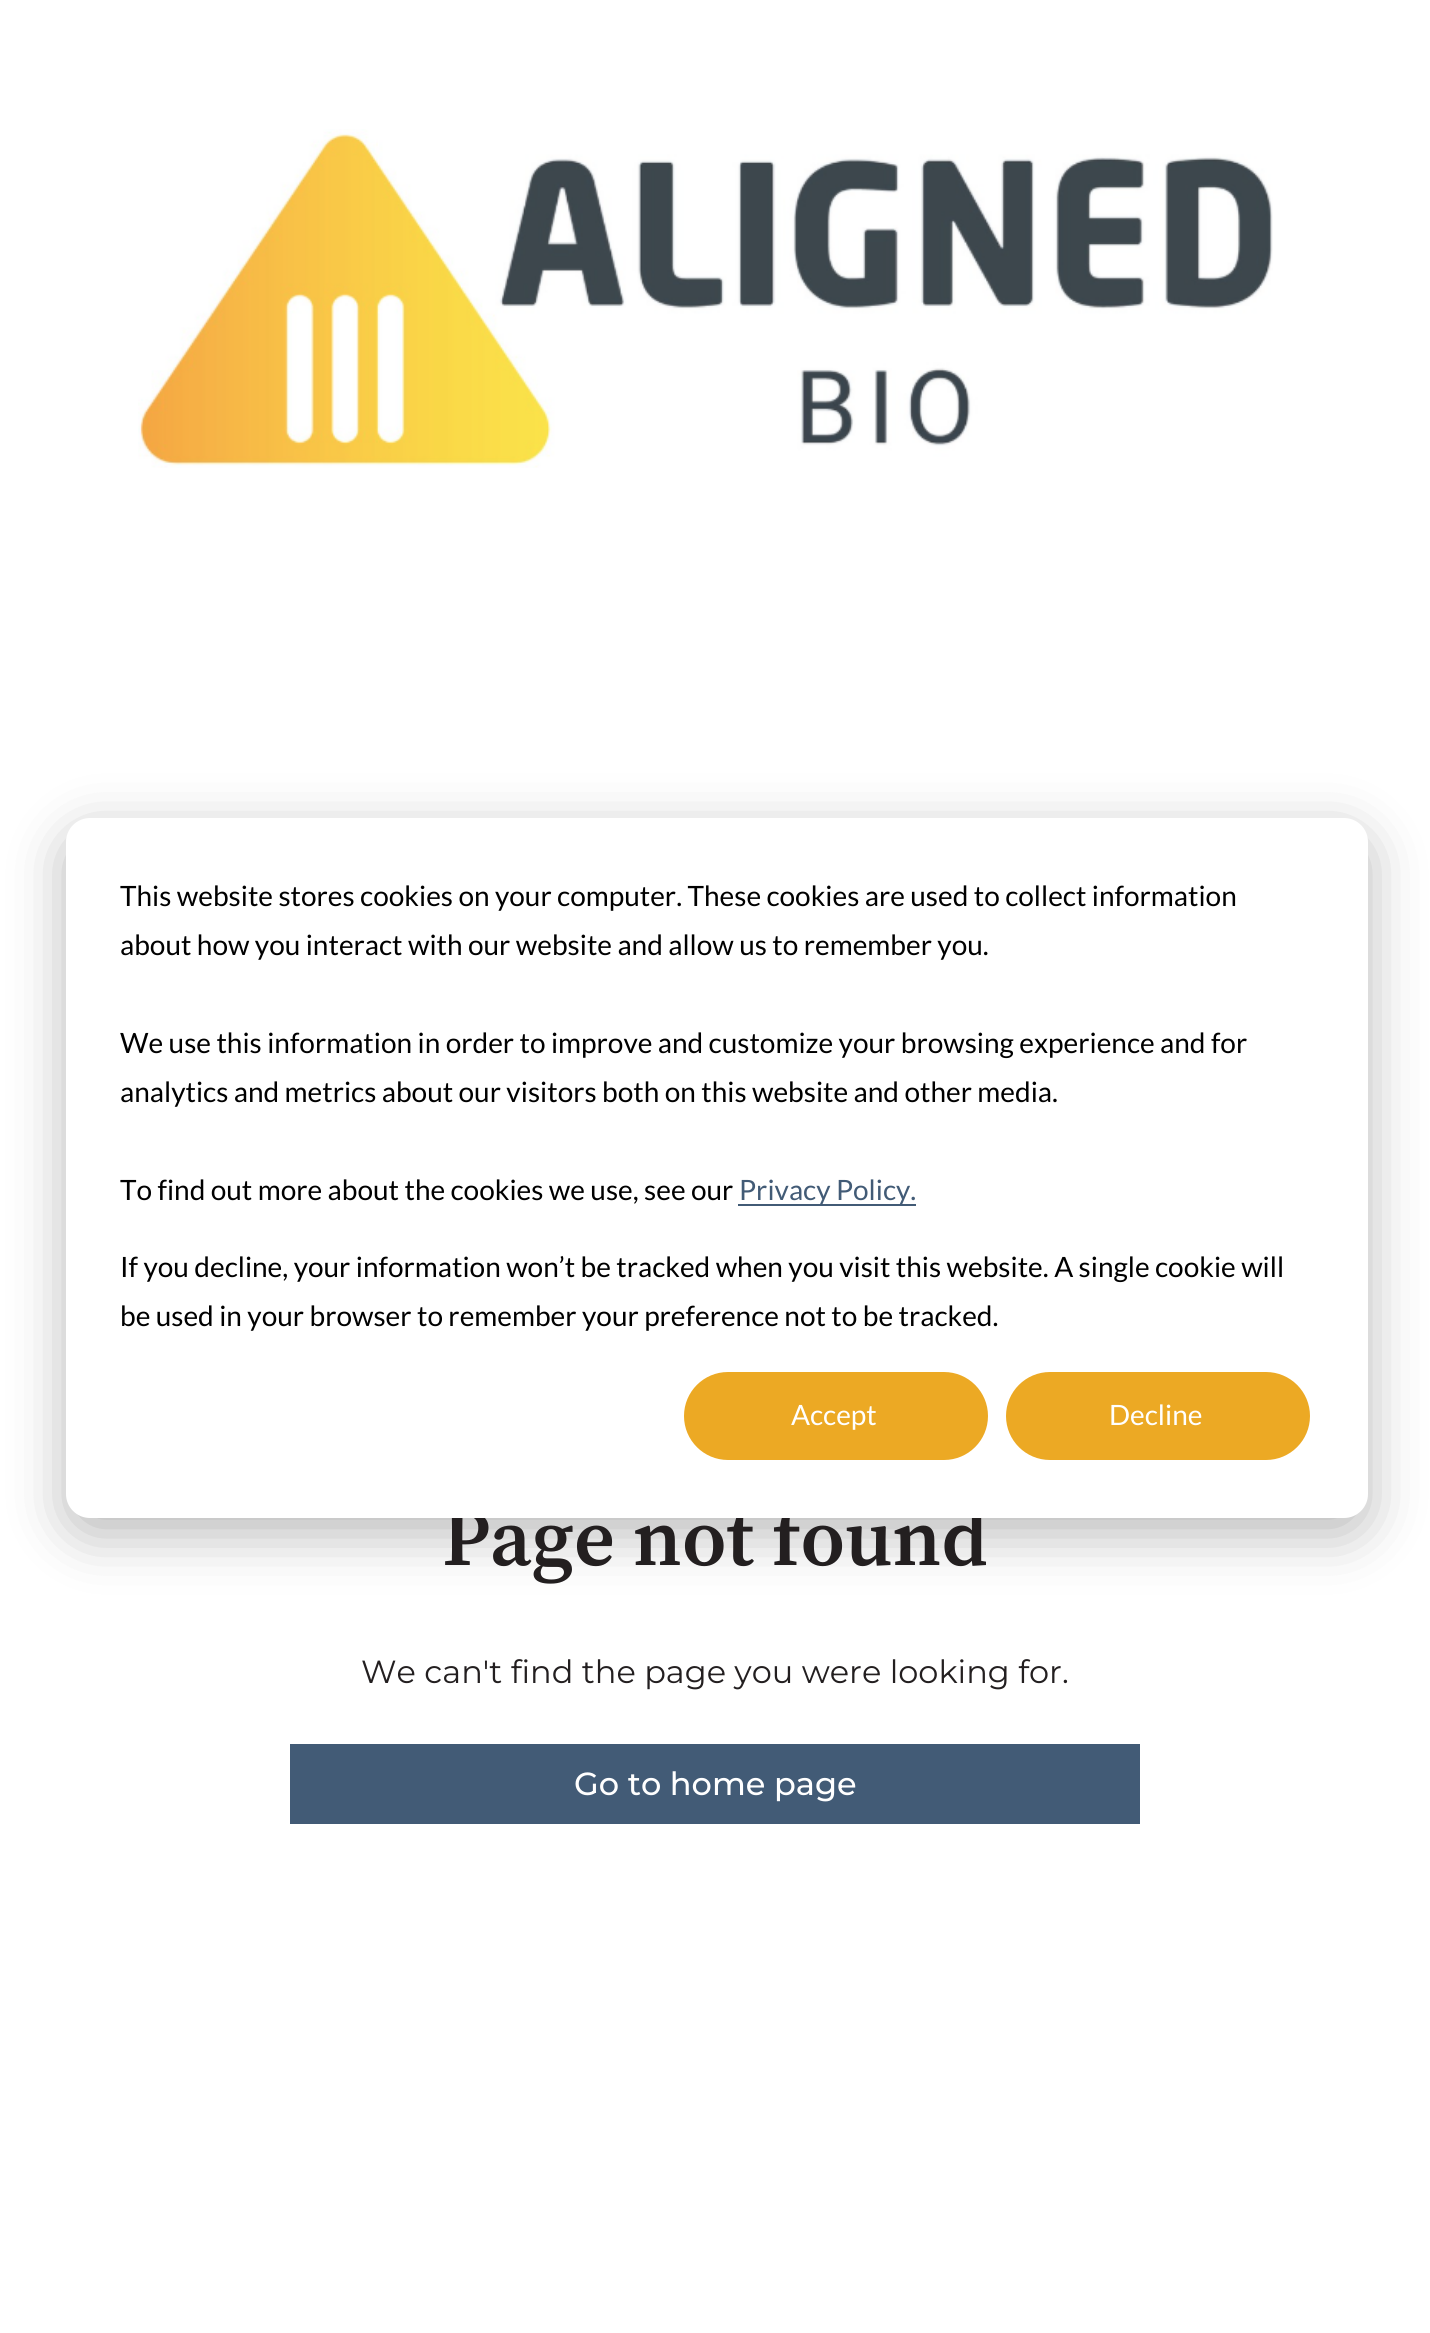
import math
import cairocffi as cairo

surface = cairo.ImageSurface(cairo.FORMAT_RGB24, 1430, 2333)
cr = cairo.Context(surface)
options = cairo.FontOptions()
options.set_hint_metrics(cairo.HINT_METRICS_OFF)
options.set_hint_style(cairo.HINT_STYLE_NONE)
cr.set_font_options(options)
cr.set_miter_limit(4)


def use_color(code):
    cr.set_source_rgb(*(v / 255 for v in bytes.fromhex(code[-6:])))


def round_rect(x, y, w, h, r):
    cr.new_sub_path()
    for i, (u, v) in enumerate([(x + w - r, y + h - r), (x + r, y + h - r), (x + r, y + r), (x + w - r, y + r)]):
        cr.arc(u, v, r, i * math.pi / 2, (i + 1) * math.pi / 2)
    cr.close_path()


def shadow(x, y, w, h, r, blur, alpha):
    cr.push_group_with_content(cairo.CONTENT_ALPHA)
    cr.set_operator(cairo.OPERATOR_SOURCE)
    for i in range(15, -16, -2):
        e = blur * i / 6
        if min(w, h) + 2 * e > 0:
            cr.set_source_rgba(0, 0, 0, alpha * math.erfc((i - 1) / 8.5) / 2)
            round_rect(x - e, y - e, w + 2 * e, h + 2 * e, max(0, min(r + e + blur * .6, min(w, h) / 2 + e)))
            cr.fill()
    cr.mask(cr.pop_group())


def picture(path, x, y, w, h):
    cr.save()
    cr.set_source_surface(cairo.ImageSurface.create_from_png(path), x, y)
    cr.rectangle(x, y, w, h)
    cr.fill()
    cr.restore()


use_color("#ffffff")
cr.paint()
use_color("#000000")
shadow(66, 834, 1302, 700, 24, 28, 0.28)
cr.select_font_face("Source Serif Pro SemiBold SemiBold")
cr.set_font_size(80)
use_color("#231f20")
cr.move_to(442, 1565)
cr.show_text("Page not found")
use_color("#ffffff")
round_rect(66, 818, 1302, 700, 24)
cr.fill()
cr.select_font_face("Lato")
cr.set_font_size(28)
use_color("#000000")
cr.move_to(120, 906)
cr.show_text("This website stores cookies on your computer. These cookies are used to collect information")
cr.move_to(120, 955)
cr.show_text("about how you interact with our website and allow us to remember you.")
cr.move_to(120, 1053)
cr.show_text("We use this information in order to improve and customize your browsing experience and for")
cr.move_to(120, 1102)
cr.show_text("analytics and metrics about our visitors both on this website and other media.")
cr.move_to(120, 1200)
cr.show_text("To find out more about the cookies we use, see our")
use_color("#425b76")
cr.rectangle(738, 1204, 178, 2)
cr.fill()
cr.move_to(739, 1200)
cr.show_text("Privacy Policy.")
use_color("#000000")
cr.move_to(120, 1277)
cr.show_text("If you decline, your information won’t be tracked when you visit this website. A single cookie will")
cr.move_to(120, 1326)
cr.show_text("be used in your browser to remember your preference not to be tracked.")
use_color("#eca924")
round_rect(683, 1371, 306, 90, 45)
cr.fill_preserve()
use_color("#ffffff")
cr.stroke()
cr.move_to(791, 1425)
cr.show_text("Accept")
use_color("#eca924")
round_rect(1005, 1371, 306, 90, 45)
cr.fill_preserve()
use_color("#ffffff")
cr.stroke()
cr.move_to(1109, 1425)
cr.show_text("Decline")
picture("img1.png", 138, 129, 1135, 339)
cr.select_font_face("Montserrat")
cr.set_font_size(32)
use_color("#231f20")
cr.move_to(361, 1683)
cr.show_text("We can't find the page you were looking for.")
use_color("#425b76")
cr.rectangle(290, 1744, 850, 80)
cr.fill()
cr.select_font_face("Montserrat Medium")
use_color("#ffffff")
cr.move_to(574, 1795)
cr.show_text("Go to home page")
surface.write_to_png("result.png")
